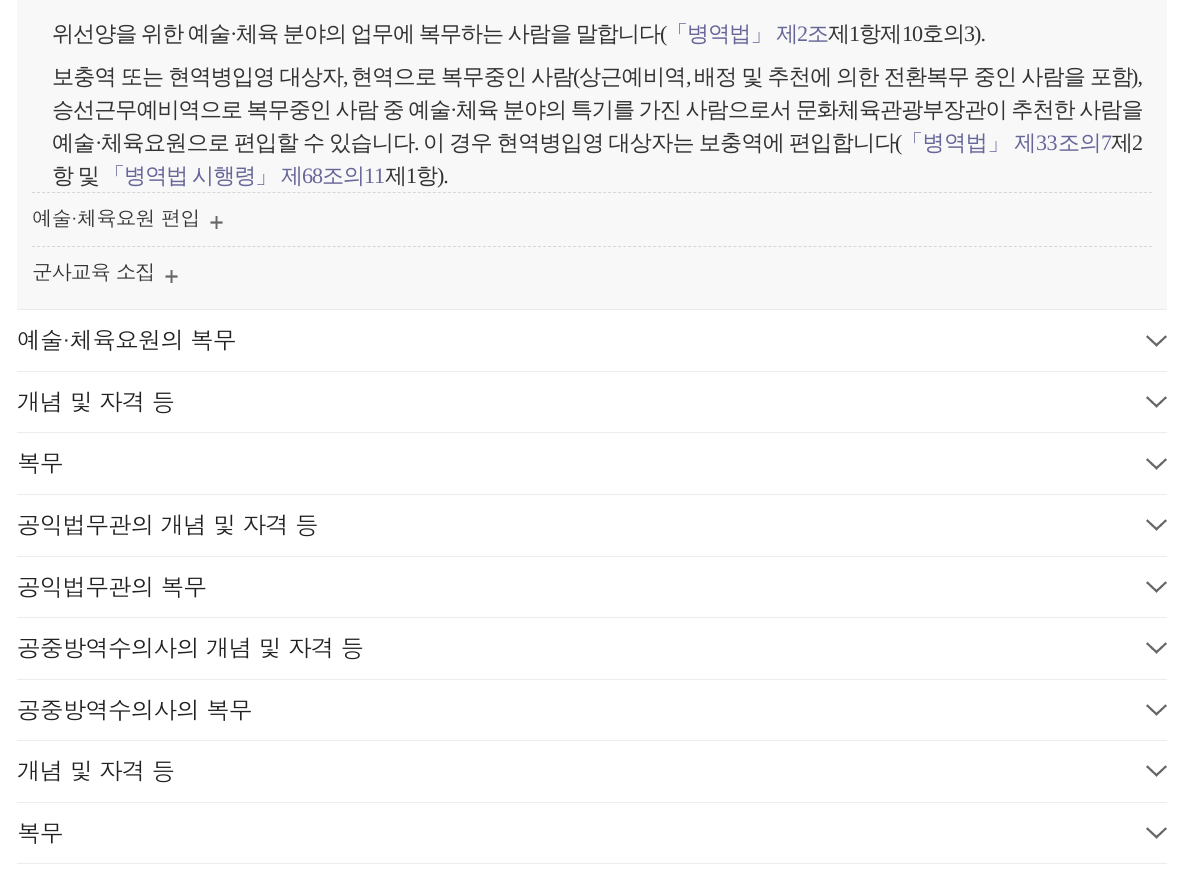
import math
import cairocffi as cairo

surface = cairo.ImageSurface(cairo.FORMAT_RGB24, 1184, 882)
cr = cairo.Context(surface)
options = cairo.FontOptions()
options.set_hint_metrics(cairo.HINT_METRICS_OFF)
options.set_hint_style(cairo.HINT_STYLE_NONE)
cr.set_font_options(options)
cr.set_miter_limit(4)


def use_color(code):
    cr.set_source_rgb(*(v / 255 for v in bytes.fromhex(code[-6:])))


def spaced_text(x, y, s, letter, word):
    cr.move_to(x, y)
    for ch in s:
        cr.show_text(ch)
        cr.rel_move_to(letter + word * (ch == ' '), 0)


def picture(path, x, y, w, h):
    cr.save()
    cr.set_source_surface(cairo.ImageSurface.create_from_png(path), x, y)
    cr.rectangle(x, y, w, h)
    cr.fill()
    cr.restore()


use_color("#ffffff")
cr.paint()
use_color("#f8f8f8")
cr.rectangle(17, 0, 1150, 309)
cr.fill()
cr.select_font_face("WenQuanYi Zen Hei Medium")
cr.set_font_size(22.1)
use_color("#333333")
spaced_text(52, 41, "위선양을 위한 예술", -1, -1)
cr.select_font_face("Liberation Serif")
spaced_text(230, 41, "·", -1, 0)
cr.select_font_face("WenQuanYi Zen Hei Medium")
spaced_text(236, 41, "체육 분야의 업무에 복무하는 사람을 말합니다", -1, -1)
cr.select_font_face("Liberation Serif")
spaced_text(660, 41, "(", -1, 0)
cr.select_font_face("WenQuanYi Zen Hei Medium")
use_color("#666699")
spaced_text(666, 41, "「병역법」 제", -1, -1)
cr.select_font_face("Liberation Serif")
spaced_text(797, 41, "2", -1, 0)
cr.select_font_face("WenQuanYi Zen Hei Medium")
spaced_text(807, 41, "조", -1, 0)
use_color("#333333")
spaced_text(828, 41, "제", -1, 0)
cr.select_font_face("Liberation Serif")
spaced_text(849, 41, "1", -1, 0)
cr.select_font_face("WenQuanYi Zen Hei Medium")
spaced_text(859, 41, "항제", -1, 0)
cr.select_font_face("Liberation Serif")
spaced_text(902, 41, "10", -1, 0)
cr.select_font_face("WenQuanYi Zen Hei Medium")
spaced_text(922, 41, "호의", -1, 0)
cr.select_font_face("Liberation Serif")
spaced_text(964, 41, "3).", -1, 0)
cr.select_font_face("WenQuanYi Zen Hei Medium")
spaced_text(52, 84, "보충역 또는 현역병입영 대상자", -0.8, -1)
cr.select_font_face("Liberation Serif")
spaced_text(343, 84, ",", -0.8, 0)
cr.select_font_face("WenQuanYi Zen Hei Medium")
spaced_text(351, 84, "현역으로 복무중인 사람", -0.8, -1)
cr.select_font_face("Liberation Serif")
spaced_text(573, 84, "(", -0.8, 0)
cr.select_font_face("WenQuanYi Zen Hei Medium")
spaced_text(579, 84, "상근예비역", -0.8, 0)
cr.select_font_face("Liberation Serif")
spaced_text(686, 84, ",", -0.8, 0)
cr.select_font_face("WenQuanYi Zen Hei Medium")
spaced_text(694, 84, "배정 및 추천에 의한 전환복무 중인 사람을 포함", -0.8, -1)
cr.select_font_face("Liberation Serif")
spaced_text(1131, 84, "),", -0.8, 0)
cr.select_font_face("WenQuanYi Zen Hei Medium")
spaced_text(52, 117, "승선근무예비역으로 복무중인 사람 중 예술", -1, -1)
cr.select_font_face("Liberation Serif")
spaced_text(450, 117, "·", -1, 0)
cr.select_font_face("WenQuanYi Zen Hei Medium")
spaced_text(456, 117, "체육 분야의 특기를 가진 사람으로서 문화체육관광부장관이 추천한 사람을", -1, -1)
spaced_text(52, 150, "예술", -0.75, 0)
cr.select_font_face("Liberation Serif")
spaced_text(95, 150, "·", -0.75, 0)
cr.select_font_face("WenQuanYi Zen Hei Medium")
spaced_text(101, 150, "체육요원으로 편입할 수 있습니다", -0.75, -1)
spaced_text(423, 150, "이 경우 현역병입영 대상자는 보충역에 편입합니다", -0.75, -1)
cr.select_font_face("Liberation Serif")
spaced_text(895, 150, "(", -0.75, 0)
cr.select_font_face("WenQuanYi Zen Hei Medium")
use_color("#666699")
spaced_text(901, 150, "「병역법」 제", -0.5, -1)
cr.select_font_face("Liberation Serif")
spaced_text(1036, 150, "33", -0.5, 0)
cr.select_font_face("WenQuanYi Zen Hei Medium")
spaced_text(1058, 150, "조의", -0.5, 0)
cr.select_font_face("Liberation Serif")
spaced_text(1101, 150, "7", -0.5, 0)
cr.select_font_face("WenQuanYi Zen Hei Medium")
use_color("#333333")
spaced_text(1111, 150, "제", -1, 0)
cr.select_font_face("Liberation Serif")
spaced_text(1132, 150, "2", -1, 0)
spaced_text(414, 150, ".", -0.75, 0)
cr.select_font_face("WenQuanYi Zen Hei Medium")
spaced_text(52, 183, "항 및", -1, -1)
use_color("#666699")
spaced_text(103, 183, "「병역법 시행령」 제", -1, -1)
cr.select_font_face("Liberation Serif")
spaced_text(302, 183, "68", -1, 0)
cr.select_font_face("WenQuanYi Zen Hei Medium")
spaced_text(322, 183, "조의", -1, 0)
cr.select_font_face("Liberation Serif")
spaced_text(364, 183, "11", -1, 0)
cr.select_font_face("WenQuanYi Zen Hei Medium")
use_color("#333333")
spaced_text(385, 183, "제", -1, 0)
cr.select_font_face("Liberation Serif")
spaced_text(406, 183, "1", -1, 0)
cr.select_font_face("WenQuanYi Zen Hei Medium")
spaced_text(416, 183, "항", -1, 0)
cr.select_font_face("Liberation Serif")
spaced_text(437, 183, ").", -1, 0)
cr.new_path()
cr.move_to(32, 192.5)
cr.line_to(1152, 192.5)
use_color("#d6d6d6")
cr.set_line_width(1)
cr.set_dash([3, 2.01])
cr.stroke()
cr.select_font_face("Dotum")
cr.set_font_size(20.5)
use_color("#333333")
spaced_text(32, 226, "예술·체육요원 편입", -1, 0)
picture("img1.png", 210, 216, 13, 13)
cr.new_path()
cr.move_to(32, 246.5)
cr.line_to(1152, 246.5)
use_color("#d6d6d6")
cr.stroke()
use_color("#333333")
spaced_text(32, 280, "군사교육 소집", -1, 0)
picture("img1.png", 165, 270, 13, 13)
use_color("#ececec")
cr.rectangle(17, 309, 1150, 1)
cr.fill()
cr.set_font_size(23.75)
use_color("#212121")
spaced_text(17, 349, "예술·체육요원의 복무", -1, 0)
picture("img2.png", 1146, 335, 21, 12)
use_color("#ececec")
cr.rectangle(17, 371, 1150, 1)
cr.fill()
use_color("#212121")
spaced_text(17, 411, "개념 및 자격 등", -1, 0)
picture("img2.png", 1146, 396, 21, 12)
use_color("#ececec")
cr.rectangle(17, 432, 1150, 1)
cr.fill()
use_color("#212121")
spaced_text(17, 472, "복무", -1, 0)
picture("img2.png", 1146, 458, 21, 12)
use_color("#ececec")
cr.rectangle(17, 494, 1150, 1)
cr.fill()
use_color("#212121")
spaced_text(17, 534, "공익법무관의 개념 및 자격 등", -1, 0)
picture("img2.png", 1146, 519, 21, 12)
use_color("#ececec")
cr.rectangle(17, 556, 1150, 1)
cr.fill()
use_color("#212121")
spaced_text(17, 596, "공익법무관의 복무", -1, 0)
picture("img2.png", 1146, 581, 21, 12)
use_color("#ececec")
cr.rectangle(17, 617, 1150, 1)
cr.fill()
use_color("#212121")
spaced_text(17, 657, "공중방역수의사의 개념 및 자격 등", -1, 0)
picture("img2.png", 1146, 642, 21, 12)
use_color("#ececec")
cr.rectangle(17, 679, 1150, 1)
cr.fill()
use_color("#212121")
spaced_text(17, 719, "공중방역수의사의 복무", -1, 0)
picture("img2.png", 1146, 704, 21, 12)
use_color("#ececec")
cr.rectangle(17, 740, 1150, 1)
cr.fill()
use_color("#212121")
spaced_text(17, 780, "개념 및 자격 등", -1, 0)
picture("img2.png", 1146, 765, 21, 12)
use_color("#ececec")
cr.rectangle(17, 802, 1150, 1)
cr.fill()
cr.rectangle(17, 863, 1150, 1)
cr.fill()
use_color("#212121")
spaced_text(17, 842, "복무", -1, 0)
picture("img2.png", 1146, 827, 21, 12)
surface.write_to_png("result.png")
